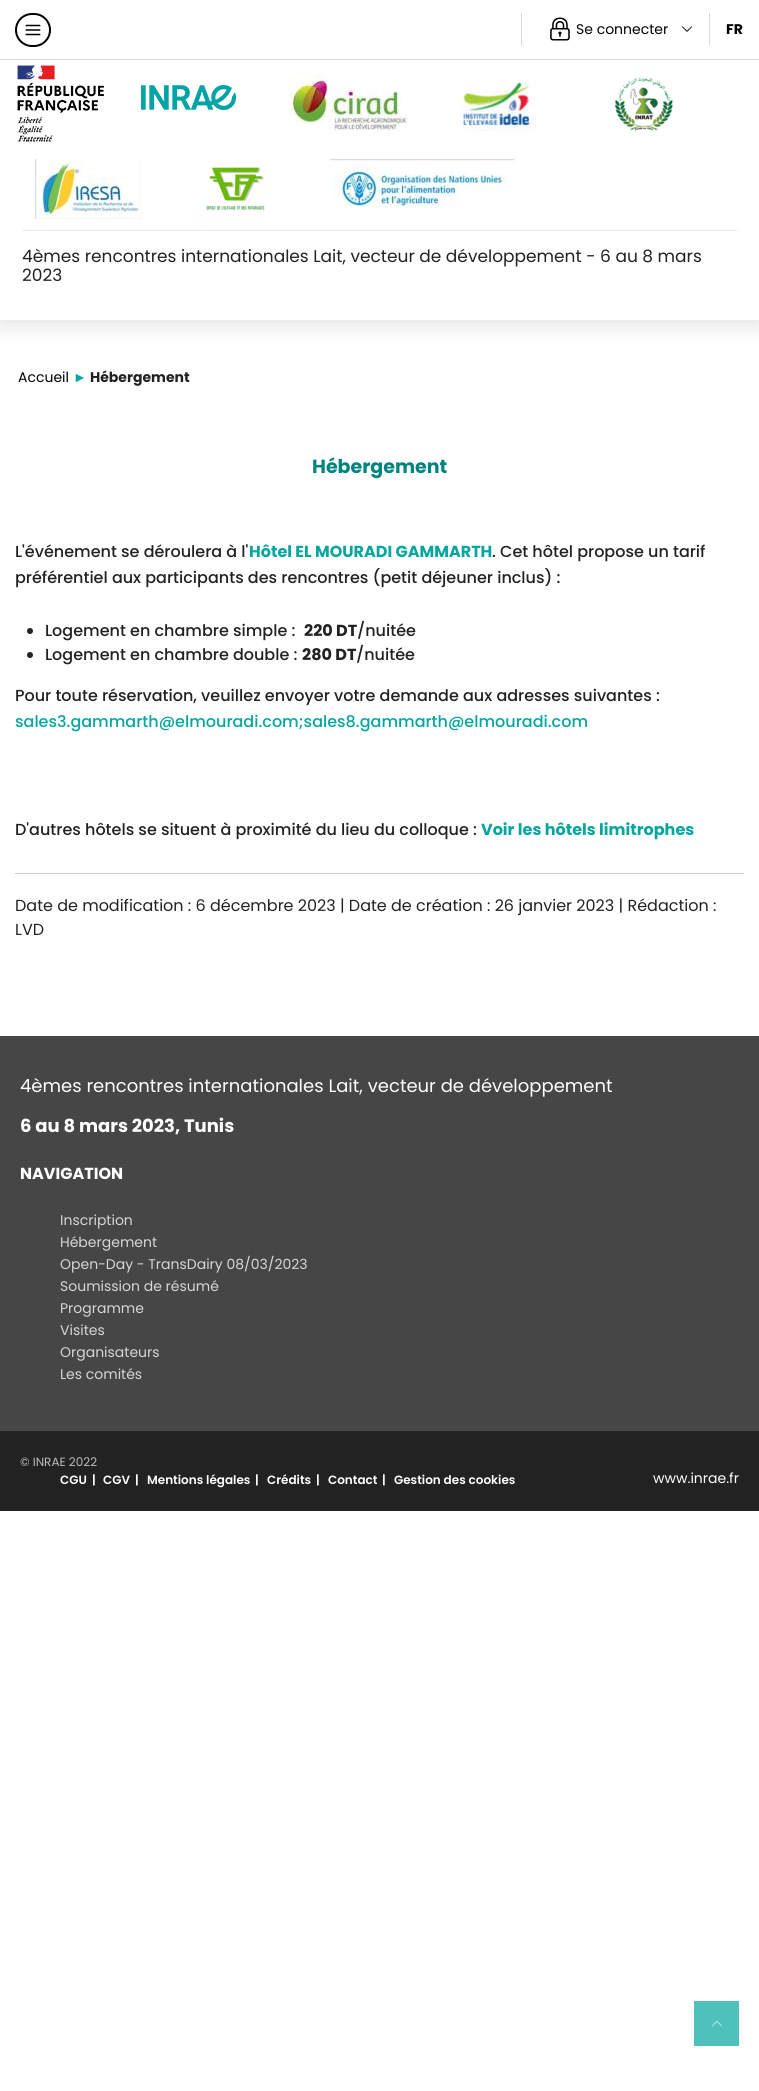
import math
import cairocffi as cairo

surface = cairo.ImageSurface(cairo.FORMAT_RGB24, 759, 2091)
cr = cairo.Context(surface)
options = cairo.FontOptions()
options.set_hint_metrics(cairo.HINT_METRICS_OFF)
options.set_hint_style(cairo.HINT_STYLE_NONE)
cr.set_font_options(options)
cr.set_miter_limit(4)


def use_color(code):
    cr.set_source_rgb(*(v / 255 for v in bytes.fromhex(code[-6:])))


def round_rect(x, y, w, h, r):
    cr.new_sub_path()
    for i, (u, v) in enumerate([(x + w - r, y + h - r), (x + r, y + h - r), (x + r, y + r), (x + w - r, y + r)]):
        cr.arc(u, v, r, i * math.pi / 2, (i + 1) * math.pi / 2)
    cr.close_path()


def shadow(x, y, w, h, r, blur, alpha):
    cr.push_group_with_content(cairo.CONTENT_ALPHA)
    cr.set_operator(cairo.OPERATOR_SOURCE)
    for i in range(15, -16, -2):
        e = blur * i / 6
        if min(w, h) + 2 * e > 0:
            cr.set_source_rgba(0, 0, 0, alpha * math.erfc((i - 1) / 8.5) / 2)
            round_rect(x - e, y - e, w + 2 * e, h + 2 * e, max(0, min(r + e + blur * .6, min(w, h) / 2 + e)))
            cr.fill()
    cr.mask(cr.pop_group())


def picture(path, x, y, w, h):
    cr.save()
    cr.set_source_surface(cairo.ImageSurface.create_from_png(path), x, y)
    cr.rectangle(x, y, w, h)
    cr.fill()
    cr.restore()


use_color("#ffffff")
cr.paint()
cr.save()
cr.rectangle(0, 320, 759, 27)
cr.clip()
use_color("#e3e3e3")
shadow(0, 5, 759, 320, 0, 10.5, 1)
cr.restore()
use_color("#d8d8d8")
cr.rectangle(0, 59, 759, 1)
cr.fill()
round_rect(16, 14, 34, 32, 16)
use_color("#000000")
cr.stroke()
picture("img1.png", 25, 24, 16, 12)
use_color("#d8d8d8")
cr.new_path()
cr.move_to(521, 46)
cr.line_to(521, 13)
cr.line_to(522, 13)
cr.line_to(522, 45)
cr.close_path()
cr.fill()
picture("img2.png", 550, 17, 20, 24)
cr.select_font_face("Poppins")
cr.set_font_size(14)
use_color("#000000")
cr.move_to(576, 34)
cr.show_text("Se connecter")
picture("img3.png", 681, 26, 12, 6)
use_color("#d8d8d8")
cr.new_path()
cr.move_to(709, 46)
cr.line_to(709, 13)
cr.line_to(710, 13)
cr.line_to(710, 45)
cr.close_path()
cr.fill()
cr.select_font_face("Poppins", cairo.FONT_SLANT_NORMAL, cairo.FONT_WEIGHT_BOLD)
use_color("#000000")
cr.move_to(726, 34)
cr.show_text("FR")
picture("img4.png", 17, 65, 219, 77)
picture("img5.png", 289, 74, 120, 57)
picture("img6.png", 463, 82, 73, 49)
picture("img7.png", 614, 77, 59, 54)
picture("img8.png", 35, 159, 106, 60)
picture("img9.png", 206, 167, 59, 43)
picture("img10.png", 330, 159, 184, 49)
use_color("#eaeaea")
cr.rectangle(22, 230, 715, 1)
cr.fill()
cr.select_font_face("Poppins")
cr.set_font_size(17)
use_color("#222222")
cr.move_to(22, 262)
cr.show_text("4èmes rencontres internationales Lait, vecteur de développement - 6 au 8 mars")
cr.move_to(22, 281)
cr.show_text("2023")
cr.set_font_size(14)
use_color("#000000")
cr.move_to(18, 382)
cr.show_text("Accueil")
cr.select_font_face("Liberation Sans", cairo.FONT_SLANT_NORMAL, cairo.FONT_WEIGHT_BOLD)
use_color("#04a69f")
cr.move_to(73, 382)
cr.show_text("►")
cr.select_font_face("Poppins", cairo.FONT_SLANT_NORMAL, cairo.FONT_WEIGHT_BOLD)
use_color("#222222")
cr.move_to(90, 382)
cr.show_text("Hébergement")
cr.set_font_size(19)
use_color("#00847f")
cr.move_to(312, 473)
cr.show_text("Hébergement")
cr.select_font_face("Poppins Medium")
cr.set_font_size(16)
use_color("#222222")
cr.move_to(15, 557)
cr.show_text("L'événement se déroulera à l'")
cr.select_font_face("Poppins", cairo.FONT_SLANT_NORMAL, cairo.FONT_WEIGHT_BOLD)
use_color("#04a69f")
cr.move_to(249, 557)
cr.show_text("Hôtel EL MOURADI GAMMARTH")
cr.select_font_face("Poppins Medium")
use_color("#222222")
cr.move_to(492, 557)
cr.show_text(". Cet hôtel propose un tarif")
cr.move_to(15, 583)
cr.show_text("préférentiel aux participants des rencontres (petit déjeuner inclus) :")
cr.new_path()
cr.arc(30, 631, 3, 0, 2 * math.pi)
cr.fill()
cr.move_to(45, 636)
cr.show_text("Logement en chambre simple :")
cr.select_font_face("Poppins", cairo.FONT_SLANT_NORMAL, cairo.FONT_WEIGHT_BOLD)
cr.move_to(304, 636)
cr.show_text("220 DT")
cr.select_font_face("Poppins Medium")
cr.move_to(357, 636)
cr.show_text("/nuitée")
cr.new_path()
cr.arc(30, 655, 3, 0, 2 * math.pi)
cr.fill()
cr.move_to(45, 660)
cr.show_text("Logement en chambre double :")
cr.select_font_face("Poppins", cairo.FONT_SLANT_NORMAL, cairo.FONT_WEIGHT_BOLD)
cr.move_to(302, 660)
cr.show_text("280 DT")
cr.select_font_face("Poppins Medium")
cr.move_to(356, 660)
cr.show_text("/nuitée")
cr.move_to(15, 701)
cr.show_text("Pour toute réservation, veuillez envoyer votre demande aux adresses suivantes :")
use_color("#04a69f")
cr.move_to(15, 727)
cr.show_text("sales3.gammarth@elmouradi.com;sales8.gammarth@elmouradi.com")
use_color("#222222")
cr.move_to(15, 835)
cr.show_text("D'autres hôtels se situent à proximité du lieu du colloque :")
cr.select_font_face("Poppins", cairo.FONT_SLANT_NORMAL, cairo.FONT_WEIGHT_BOLD)
use_color("#04a69f")
cr.move_to(481, 835)
cr.show_text("Voir les hôtels limitrophes")
use_color("#cccccc")
cr.rectangle(15, 873, 729, 1)
cr.fill()
cr.select_font_face("Poppins")
use_color("#222222")
cr.move_to(15, 911)
cr.show_text("Date de modification : 6 décembre 2023 | Date de création : 26 janvier 2023 | Rédaction :")
cr.move_to(15, 935)
cr.show_text("LVD")
use_color("#464646")
cr.rectangle(0, 1036, 759, 395)
cr.fill()
cr.set_font_size(18)
use_color("#ffffff")
cr.move_to(20, 1092)
cr.show_text("4èmes rencontres internationales Lait, vecteur de développement")
cr.select_font_face("Poppins", cairo.FONT_SLANT_NORMAL, cairo.FONT_WEIGHT_BOLD)
cr.move_to(20, 1132)
cr.show_text("6 au 8 mars 2023, Tunis")
cr.set_font_size(16)
cr.move_to(20, 1179)
cr.show_text("NAVIGATION")
cr.select_font_face("Poppins")
cr.set_font_size(14)
use_color("#d6d6d6")
cr.move_to(60, 1225)
cr.show_text("Inscription")
cr.move_to(60, 1247)
cr.show_text("Hébergement")
cr.move_to(60, 1269)
cr.show_text("Open-Day - TransDairy 08/03/2023")
cr.move_to(60, 1291)
cr.show_text("Soumission de résumé")
cr.move_to(60, 1313)
cr.show_text("Programme")
cr.move_to(60, 1335)
cr.show_text("Visites")
cr.move_to(60, 1357)
cr.show_text("Organisateurs")
cr.move_to(60, 1379)
cr.show_text("Les comités")
use_color("#222222")
cr.rectangle(0, 1431, 759, 80)
cr.fill()
cr.set_font_size(12)
use_color("#bdbdbd")
cr.move_to(20, 1466)
cr.show_text("© INRAE 2022")
cr.select_font_face("Poppins SemiBold")
use_color("#ffffff")
cr.move_to(60, 1484)
cr.show_text("CGU")
cr.move_to(92, 1484)
cr.show_text("|")
cr.move_to(103, 1484)
cr.show_text("CGV")
cr.move_to(135, 1484)
cr.show_text("|")
cr.move_to(147, 1484)
cr.show_text("Mentions légales")
cr.move_to(255, 1484)
cr.show_text("|")
cr.move_to(267, 1484)
cr.show_text("Crédits")
cr.move_to(316, 1484)
cr.show_text("|")
cr.move_to(328, 1484)
cr.show_text("Contact")
cr.move_to(382, 1484)
cr.show_text("|")
cr.move_to(394, 1484)
cr.show_text("Gestion des cookies")
cr.select_font_face("Poppins")
cr.set_font_size(14)
cr.move_to(653, 1483)
cr.show_text("www.inrae.fr")
use_color("#4fc1bc")
cr.rectangle(694, 2001, 45, 45)
cr.fill()
picture("img11.png", 712, 2021, 10, 6)
surface.write_to_png("result.png")
